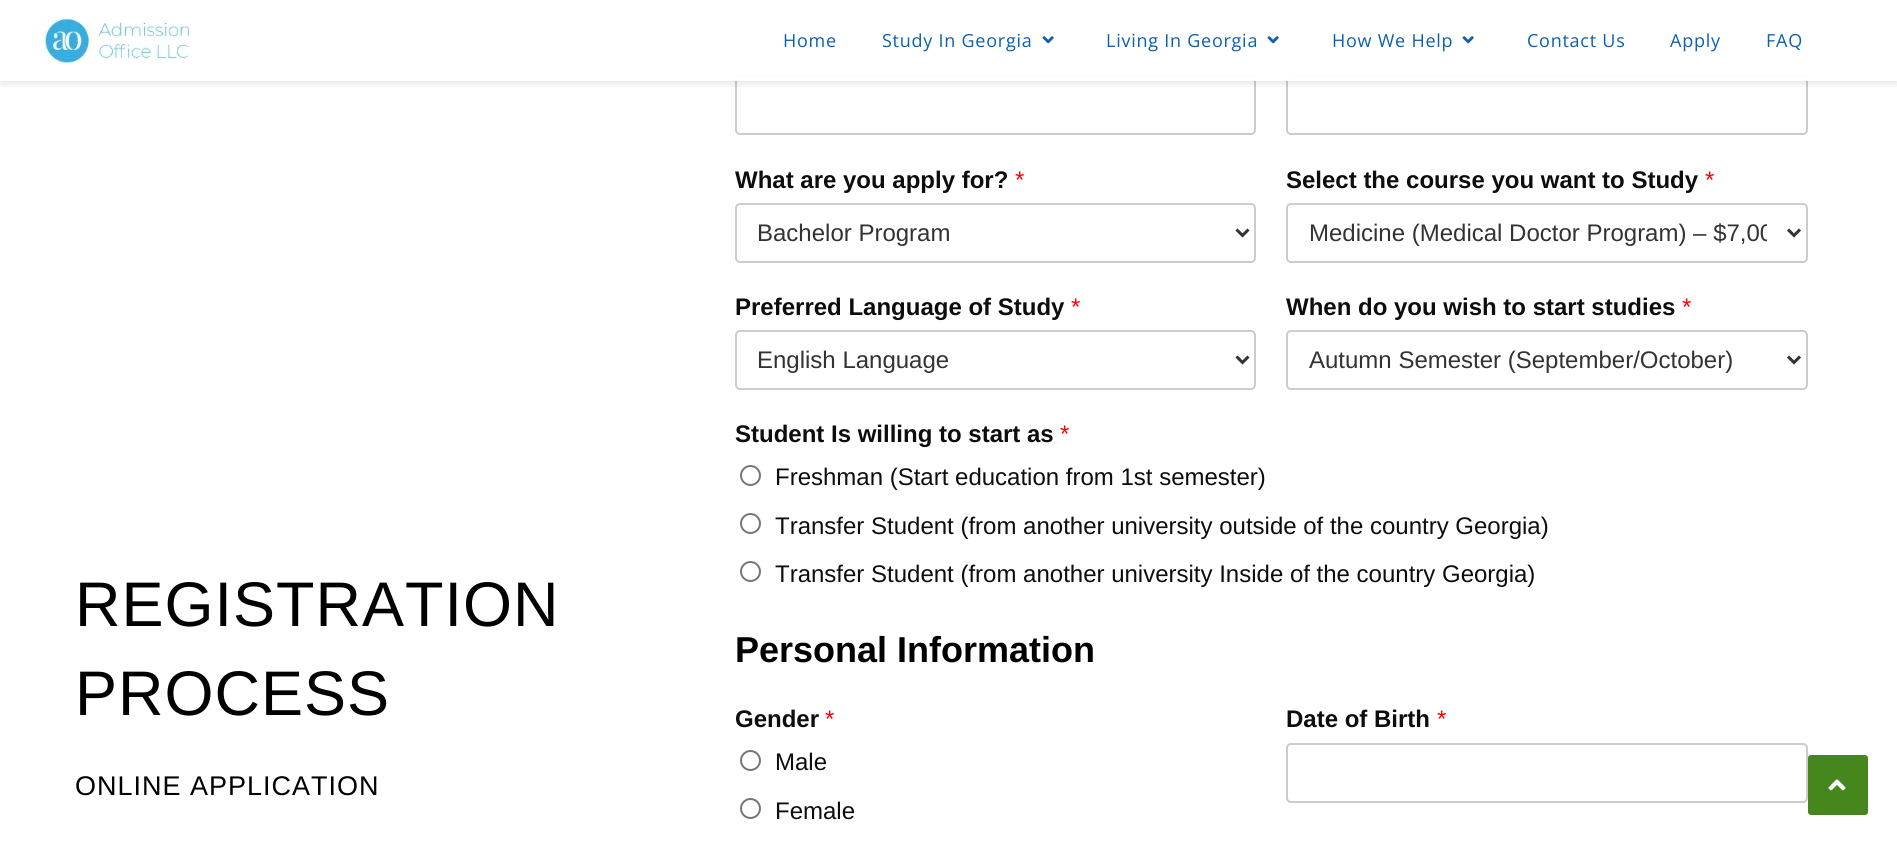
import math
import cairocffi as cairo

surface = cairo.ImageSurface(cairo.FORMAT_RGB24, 1897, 844)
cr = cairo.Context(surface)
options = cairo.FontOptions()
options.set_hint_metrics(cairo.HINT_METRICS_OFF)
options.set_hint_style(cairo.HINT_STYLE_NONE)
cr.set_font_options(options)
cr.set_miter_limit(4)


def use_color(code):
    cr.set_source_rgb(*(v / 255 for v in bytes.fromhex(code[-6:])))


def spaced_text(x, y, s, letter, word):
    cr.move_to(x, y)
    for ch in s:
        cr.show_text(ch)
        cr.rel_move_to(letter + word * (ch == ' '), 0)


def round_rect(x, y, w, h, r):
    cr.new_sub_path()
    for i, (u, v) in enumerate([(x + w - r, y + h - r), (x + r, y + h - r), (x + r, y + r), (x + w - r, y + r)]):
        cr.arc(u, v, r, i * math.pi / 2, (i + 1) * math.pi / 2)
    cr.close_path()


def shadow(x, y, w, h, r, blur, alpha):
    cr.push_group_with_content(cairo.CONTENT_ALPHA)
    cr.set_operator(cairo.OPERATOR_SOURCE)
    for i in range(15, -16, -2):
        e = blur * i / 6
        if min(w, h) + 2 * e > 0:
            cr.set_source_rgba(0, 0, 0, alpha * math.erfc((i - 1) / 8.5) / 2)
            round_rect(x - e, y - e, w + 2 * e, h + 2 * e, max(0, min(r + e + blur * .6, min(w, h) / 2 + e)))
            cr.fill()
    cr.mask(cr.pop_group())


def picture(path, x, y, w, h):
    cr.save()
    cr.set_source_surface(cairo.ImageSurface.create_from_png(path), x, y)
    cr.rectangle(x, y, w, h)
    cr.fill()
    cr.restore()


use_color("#ffffff")
cr.paint()
round_rect(736, 76, 519, 58, 4)
use_color("#cccccc")
cr.stroke()
round_rect(1287, 76, 520, 58, 4)
cr.stroke()
cr.save()
cr.rectangle(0, 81, 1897, 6)
cr.clip()
use_color("#000000")
shadow(0, 3, 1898, 81, 0, 4, 0.1)
cr.restore()
cr.set_source_rgba(1, 1, 1, 0.95)
cr.rectangle(735, 75, 1073, 6)
cr.fill()
picture("img1.png", 45, 18, 146, 45)
cr.select_font_face("Open Sans")
cr.set_font_size(18)
use_color("#0d60ac")
spaced_text(783, 47, "Home", 0.75, 0)
spaced_text(882, 47, "Study In Georgia", 0.75, 0)
picture("img2.png", 1042, 36, 12, 8)
spaced_text(1106, 47, "Living In Georgia", 0.75, 0)
picture("img2.png", 1267, 36, 12, 8)
spaced_text(1332, 47, "How We Help", 0.75, 0)
picture("img2.png", 1462, 36, 12, 8)
spaced_text(1527, 47, "Contact Us", 0.75, 0)
spaced_text(1670, 47, "Apply", 0.75, 0)
spaced_text(1766, 47, "FAQ", 0.75, 0)
cr.select_font_face("Liberation Sans")
cr.set_font_size(63)
use_color("#000000")
spaced_text(75, 626, "REGISTRATION", 1, 0)
spaced_text(75, 715, "PROCESS", 1, 0)
cr.set_font_size(27)
spaced_text(75, 795, "ONLINE APPLICATION", 1, 0)
cr.select_font_face("Liberation Sans", cairo.FONT_SLANT_NORMAL, cairo.FONT_WEIGHT_BOLD)
cr.set_font_size(24)
use_color("#0d0d0d")
cr.move_to(735, 188)
cr.show_text("What are you apply for?")
cr.select_font_face("Liberation Sans")
use_color("#ff0000")
cr.move_to(1015, 188)
cr.show_text("*")
round_rect(736, 204, 519, 58, 4)
use_color("#cccccc")
cr.stroke()
cr.new_path()
cr.move_to(1236.5, 229.5)
cr.line_to(1242.5, 235.5)
cr.line_to(1248.5, 229.5)
use_color("#333333")
cr.set_line_width(3)
cr.stroke()
cr.move_to(757, 241)
cr.show_text("Bachelor Program")
cr.select_font_face("Liberation Sans", cairo.FONT_SLANT_NORMAL, cairo.FONT_WEIGHT_BOLD)
use_color("#0d0d0d")
cr.move_to(1286, 188)
cr.show_text("Select the course you want to Study")
cr.select_font_face("Liberation Sans")
use_color("#ff0000")
cr.move_to(1705, 188)
cr.show_text("*")
round_rect(1287, 204, 520, 58, 4)
use_color("#cccccc")
cr.set_line_width(2)
cr.stroke()
cr.new_path()
cr.move_to(1788, 229.5)
cr.line_to(1794, 235.5)
cr.line_to(1800, 229.5)
use_color("#333333")
cr.set_line_width(3)
cr.stroke()
cr.save()
cr.rectangle(1308, 218, 459, 28)
cr.clip()
cr.move_to(1309, 241)
cr.show_text("Medicine (Medical Doctor Program) – $7,00")
cr.restore()
cr.select_font_face("Liberation Sans", cairo.FONT_SLANT_NORMAL, cairo.FONT_WEIGHT_BOLD)
use_color("#0d0d0d")
cr.move_to(735, 315)
cr.show_text("Preferred Language of Study")
cr.select_font_face("Liberation Sans")
use_color("#ff0000")
cr.move_to(1071, 315)
cr.show_text("*")
round_rect(736, 331, 519, 58, 4)
use_color("#cccccc")
cr.set_line_width(2)
cr.stroke()
cr.new_path()
cr.move_to(1236.5, 356.5)
cr.line_to(1242.5, 362.5)
cr.line_to(1248.5, 356.5)
use_color("#333333")
cr.set_line_width(3)
cr.stroke()
cr.move_to(757, 368)
cr.show_text("English Language")
cr.select_font_face("Liberation Sans", cairo.FONT_SLANT_NORMAL, cairo.FONT_WEIGHT_BOLD)
use_color("#0d0d0d")
cr.move_to(1286, 315)
cr.show_text("When do you wish to start studies")
cr.select_font_face("Liberation Sans")
use_color("#ff0000")
cr.move_to(1682, 315)
cr.show_text("*")
round_rect(1287, 331, 520, 58, 4)
use_color("#cccccc")
cr.set_line_width(2)
cr.stroke()
cr.new_path()
cr.move_to(1788, 356.5)
cr.line_to(1794, 362.5)
cr.line_to(1800, 356.5)
use_color("#333333")
cr.set_line_width(3)
cr.stroke()
cr.move_to(1309, 368)
cr.show_text("Autumn Semester (September/October)")
cr.select_font_face("Liberation Sans", cairo.FONT_SLANT_NORMAL, cairo.FONT_WEIGHT_BOLD)
use_color("#0d0d0d")
cr.move_to(735, 442)
cr.show_text("Student Is willing to start as")
cr.select_font_face("Liberation Sans")
use_color("#ff0000")
cr.move_to(1060, 442)
cr.show_text("*")
cr.new_path()
cr.arc(750.5, 475.5, 9.5, 0, 2 * math.pi)
use_color("#767676")
cr.set_line_width(2)
cr.stroke()
use_color("#0d0d0d")
cr.move_to(775, 485)
cr.show_text("Freshman (Start education from 1st semester)")
cr.new_path()
cr.arc(750.5, 523.5, 9.5, 0, 2 * math.pi)
use_color("#767676")
cr.stroke()
use_color("#0d0d0d")
cr.move_to(775, 534)
cr.show_text("Transfer Student (from another university outside of the country Georgia)")
cr.new_path()
cr.arc(750.5, 571.5, 9.5, 0, 2 * math.pi)
use_color("#767676")
cr.stroke()
use_color("#0d0d0d")
cr.move_to(775, 582)
cr.show_text("Transfer Student (from another university Inside of the country Georgia)")
cr.select_font_face("Liberation Sans", cairo.FONT_SLANT_NORMAL, cairo.FONT_WEIGHT_BOLD)
cr.set_font_size(36)
use_color("#000000")
cr.move_to(735, 662)
cr.show_text("Personal Information")
cr.set_font_size(24)
use_color("#0d0d0d")
cr.move_to(735, 727)
cr.show_text("Gender")
cr.select_font_face("Liberation Sans")
use_color("#ff0000")
cr.move_to(825, 727)
cr.show_text("*")
cr.new_path()
cr.arc(750.5, 760.5, 9.5, 0, 2 * math.pi)
use_color("#767676")
cr.stroke()
use_color("#0d0d0d")
cr.move_to(775, 770)
cr.show_text("Male")
cr.new_path()
cr.arc(750.5, 808.5, 9.5, 0, 2 * math.pi)
use_color("#767676")
cr.stroke()
use_color("#0d0d0d")
cr.move_to(775, 819)
cr.show_text("Female")
cr.select_font_face("Liberation Sans", cairo.FONT_SLANT_NORMAL, cairo.FONT_WEIGHT_BOLD)
cr.move_to(1286, 727)
cr.show_text("Date of Birth")
cr.select_font_face("Liberation Sans")
use_color("#ff0000")
cr.move_to(1437, 727)
cr.show_text("*")
round_rect(1287, 744, 520, 58, 4)
use_color("#cccccc")
cr.stroke()
use_color("#46871d")
round_rect(1808, 755, 60, 60, 3)
cr.fill()
picture("img3.png", 1828, 779, 18, 12)
surface.write_to_png("result.png")
